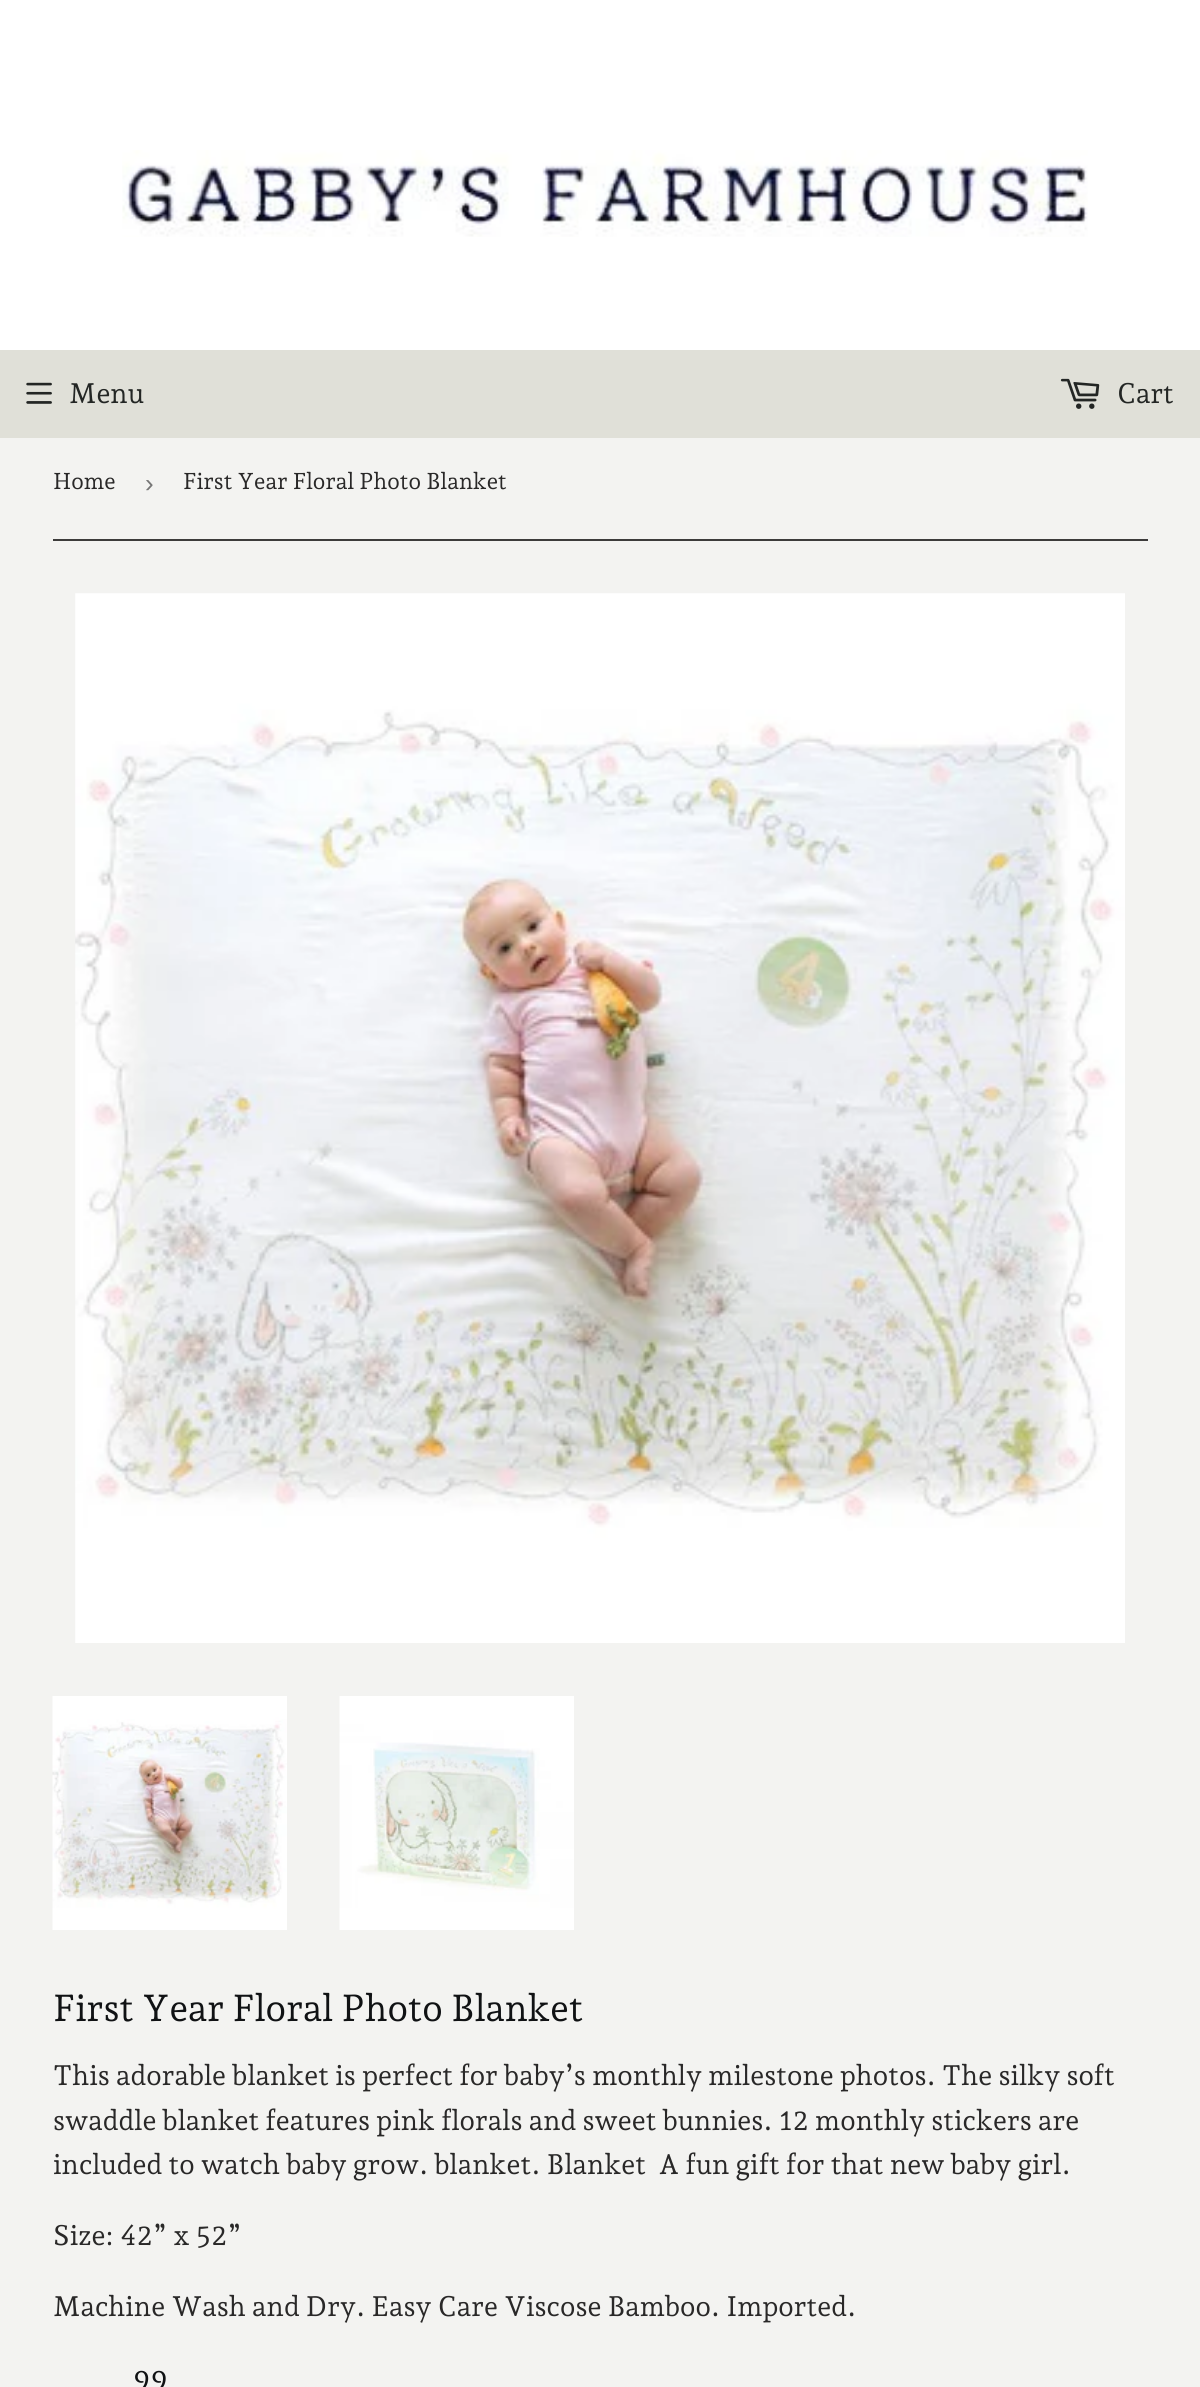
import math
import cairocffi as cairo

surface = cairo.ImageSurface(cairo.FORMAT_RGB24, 1200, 2387)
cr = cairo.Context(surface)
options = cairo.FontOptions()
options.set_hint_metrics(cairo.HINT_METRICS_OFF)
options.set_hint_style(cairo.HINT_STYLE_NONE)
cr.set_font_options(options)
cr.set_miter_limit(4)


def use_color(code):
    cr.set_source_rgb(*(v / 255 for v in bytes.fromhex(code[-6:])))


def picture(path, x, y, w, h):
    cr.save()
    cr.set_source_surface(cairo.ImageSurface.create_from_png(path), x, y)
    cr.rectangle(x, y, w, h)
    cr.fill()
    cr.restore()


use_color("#f3f3f1")
cr.paint()
use_color("#ffffff")
cr.rectangle(0, 0, 1200, 350)
cr.fill()
picture("img1.png", 122, 150, 966, 87)
use_color("#e0e0d8")
cr.rectangle(0, 350, 1200, 88)
cr.fill()
picture("img2.png", 26, 382, 26, 22)
cr.select_font_face("Andada Pro")
cr.set_font_size(28)
use_color("#232624")
cr.move_to(69, 403)
cr.show_text("Menu")
picture("img3.png", 1060, 378, 40, 31)
cr.move_to(1117, 403)
cr.show_text("Cart")
use_color("#3c3b3b")
cr.rectangle(53, 539, 1095, 2)
cr.fill()
cr.set_font_size(22.75)
use_color("#292828")
cr.move_to(53, 489)
cr.show_text("Home")
cr.select_font_face("Liberation Sans")
cr.set_font_size(26)
use_color("#767676")
cr.move_to(145, 492)
cr.show_text("›")
cr.select_font_face("Andada Pro")
cr.set_font_size(22.75)
use_color("#292828")
cr.move_to(183, 489)
cr.show_text("First Year Floral Photo Blanket")
picture("img4.png", 75, 593, 1050, 1050)
picture("img5.png", 52, 1696, 235, 234)
picture("img6.png", 339, 1696, 235, 234)
cr.set_font_size(37.25)
use_color("#101214")
cr.move_to(53, 2021)
cr.show_text("First Year Floral Photo Blanket")
cr.set_font_size(28)
use_color("#292828")
cr.move_to(53, 2085)
cr.show_text("This adorable blanket is perfect for baby’s monthly milestone photos. The silky soft")
cr.move_to(53, 2130)
cr.show_text("swaddle blanket features pink florals and sweet bunnies. 12 monthly stickers are")
cr.move_to(53, 2174)
cr.show_text("included to watch baby grow. blanket. Blanket  A fun gift for that new baby girl.")
cr.move_to(53, 2245)
cr.show_text("Size: 42” x 52”")
cr.move_to(53, 2316)
cr.show_text("Machine Wash and Dry. Easy Care Viscose Bamboo. Imported.")
cr.set_font_size(29)
use_color("#101214")
cr.move_to(133, 2390)
cr.show_text("99")
surface.write_to_png("result.png")
